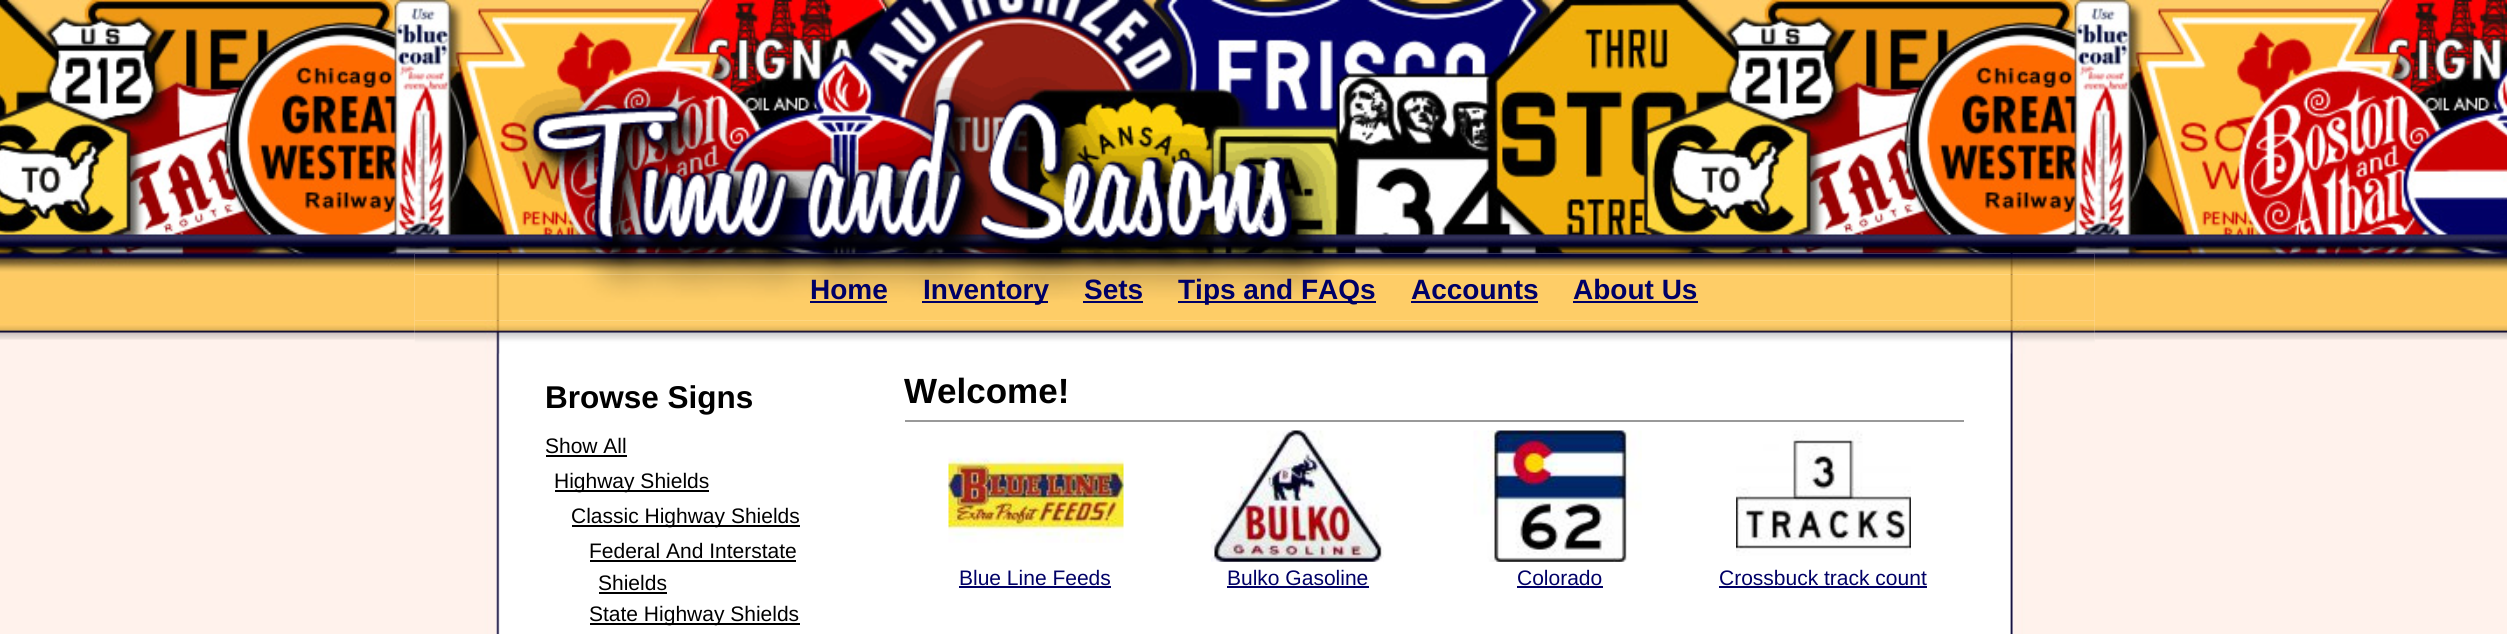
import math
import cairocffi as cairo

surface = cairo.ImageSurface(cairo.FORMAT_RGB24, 2507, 634)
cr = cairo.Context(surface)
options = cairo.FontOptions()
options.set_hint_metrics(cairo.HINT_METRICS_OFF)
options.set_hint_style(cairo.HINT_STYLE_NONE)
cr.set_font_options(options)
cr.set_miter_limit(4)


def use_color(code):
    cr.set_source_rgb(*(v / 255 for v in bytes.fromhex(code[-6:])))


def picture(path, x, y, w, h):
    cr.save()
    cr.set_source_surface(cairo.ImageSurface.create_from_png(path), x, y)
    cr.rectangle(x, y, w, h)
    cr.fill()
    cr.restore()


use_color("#fff2ec")
cr.paint()
picture("img1.png", 0, 0, 2507, 340)
picture("img3.png", 414, 253, 1681, 381)
picture("img4.png", 414, 253, 1681, 22)
picture("img2.png", 511, 77, 824, 177)
picture("img5.png", 414, 274, 1681, 47)
cr.select_font_face("Liberation Sans", cairo.FONT_SLANT_NORMAL, cairo.FONT_WEIGHT_BOLD)
cr.set_font_size(28)
use_color("#000066")
cr.move_to(810, 299)
cr.show_text("Home")
cr.rectangle(810, 301, 77, 2)
cr.fill()
cr.rectangle(922, 301, 126, 2)
cr.fill()
cr.move_to(923, 299)
cr.show_text("Inventory")
cr.move_to(1084, 299)
cr.show_text("Sets")
cr.rectangle(1083, 301, 60, 2)
cr.fill()
cr.rectangle(1178, 301, 198, 2)
cr.fill()
cr.move_to(1178, 299)
cr.show_text("Tips and FAQs")
cr.move_to(1411, 299)
cr.show_text("Accounts")
cr.rectangle(1411, 301, 127, 2)
cr.fill()
cr.move_to(1573, 299)
cr.show_text("About Us")
cr.rectangle(1573, 301, 125, 2)
cr.fill()
picture("img6.png", 414, 320, 1681, 34)
cr.set_font_size(31.5)
use_color("#000000")
cr.move_to(545, 408)
cr.show_text("Browse Signs")
cr.select_font_face("Liberation Sans")
cr.set_font_size(21)
cr.move_to(545, 453)
cr.show_text("Show All")
cr.rectangle(546, 455, 81, 2)
cr.fill()
cr.rectangle(555, 490, 154, 2)
cr.fill()
cr.move_to(554, 488)
cr.show_text("Highway Shields")
cr.rectangle(572, 525, 228, 2)
cr.fill()
cr.move_to(571, 523)
cr.show_text("Classic Highway Shields")
cr.move_to(589, 558)
cr.show_text("Federal And Interstate")
cr.rectangle(590, 560, 206, 2)
cr.fill()
cr.move_to(598, 590)
cr.show_text("Shields")
cr.rectangle(599, 592, 68, 2)
cr.fill()
cr.rectangle(590, 623, 210, 2)
cr.fill()
cr.move_to(589, 621)
cr.show_text("State Highway Shields")
use_color("#999999")
cr.rectangle(905, 420, 1059, 2)
cr.fill()
cr.select_font_face("Liberation Sans", cairo.FONT_SLANT_NORMAL, cairo.FONT_WEIGHT_BOLD)
cr.set_font_size(35)
use_color("#000000")
cr.move_to(904, 403)
cr.show_text("Welcome!")
picture("img7.png", 948, 457, 176, 86)
cr.select_font_face("Liberation Sans")
cr.set_font_size(21)
use_color("#000066")
cr.move_to(959, 585)
cr.show_text("Blue Line Feeds")
cr.rectangle(959, 586, 152, 2)
cr.fill()
picture("img8.png", 1211, 430, 173, 132)
cr.move_to(1227, 585)
cr.show_text("Bulko Gasoline")
cr.rectangle(1227, 586, 142, 2)
cr.fill()
picture("img9.png", 1473, 430, 169, 132)
cr.move_to(1517, 585)
cr.show_text("Colorado")
cr.rectangle(1517, 586, 86, 2)
cr.fill()
picture("img10.png", 1736, 430, 175, 126)
cr.move_to(1719, 585)
cr.show_text("Crossbuck track count")
cr.rectangle(1719, 586, 208, 2)
cr.fill()
surface.write_to_png("result.png")
